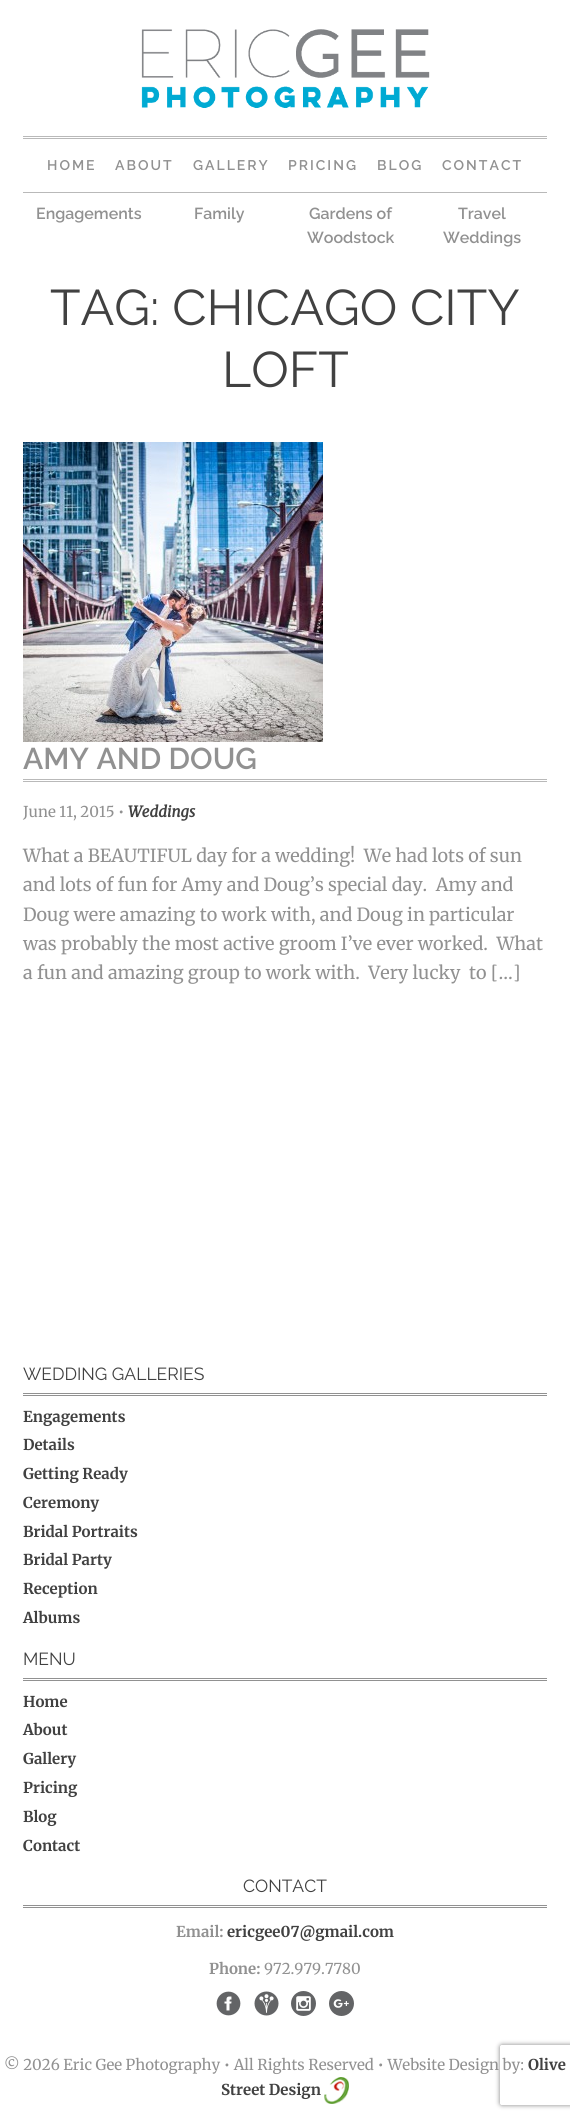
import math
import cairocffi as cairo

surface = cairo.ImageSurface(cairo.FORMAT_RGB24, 570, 2119)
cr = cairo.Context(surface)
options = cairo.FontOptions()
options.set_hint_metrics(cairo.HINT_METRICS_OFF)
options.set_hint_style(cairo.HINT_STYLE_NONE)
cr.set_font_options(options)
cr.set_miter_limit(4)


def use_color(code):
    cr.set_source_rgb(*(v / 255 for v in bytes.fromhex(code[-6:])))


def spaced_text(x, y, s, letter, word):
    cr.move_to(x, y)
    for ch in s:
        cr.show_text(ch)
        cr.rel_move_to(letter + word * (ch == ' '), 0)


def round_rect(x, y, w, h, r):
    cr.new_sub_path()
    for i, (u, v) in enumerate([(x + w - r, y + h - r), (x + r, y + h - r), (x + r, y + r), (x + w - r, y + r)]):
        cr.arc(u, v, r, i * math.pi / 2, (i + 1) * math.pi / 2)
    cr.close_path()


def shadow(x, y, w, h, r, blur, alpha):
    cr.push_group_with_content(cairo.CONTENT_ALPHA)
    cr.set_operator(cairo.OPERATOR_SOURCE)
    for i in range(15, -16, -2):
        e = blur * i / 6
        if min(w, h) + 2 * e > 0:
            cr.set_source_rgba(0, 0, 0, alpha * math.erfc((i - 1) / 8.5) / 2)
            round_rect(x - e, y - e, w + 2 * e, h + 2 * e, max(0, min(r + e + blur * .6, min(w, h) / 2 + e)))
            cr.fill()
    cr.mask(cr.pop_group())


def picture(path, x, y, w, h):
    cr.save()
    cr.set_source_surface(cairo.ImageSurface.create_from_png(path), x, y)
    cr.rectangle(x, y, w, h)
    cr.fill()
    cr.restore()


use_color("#ffffff")
cr.paint()
picture("img1.png", 141, 29, 289, 79)
use_color("#b9b9b9")
cr.rectangle(23, 136, 524, 1)
cr.fill()
cr.rectangle(23, 138, 524, 1)
cr.fill()
cr.rectangle(23, 192, 524, 1)
cr.fill()
cr.select_font_face("Raleway SemiBold")
cr.set_font_size(14)
use_color("#919191")
spaced_text(47, 170, "HOME", 2, 0)
spaced_text(115, 170, "ABOUT", 2, 0)
spaced_text(193, 170, "GALLERY", 2, 0)
spaced_text(288, 170, "PRICING", 2, 0)
spaced_text(377, 170, "BLOG", 2, 0)
spaced_text(442, 170, "CONTACT", 2, 0)
cr.set_font_size(16)
cr.move_to(36, 219)
cr.show_text("Engagements")
cr.move_to(194, 219)
cr.show_text("Family")
cr.move_to(309, 219)
cr.show_text("Gardens of")
cr.move_to(307, 243)
cr.show_text("Woodstock")
cr.move_to(458, 219)
cr.show_text("Travel")
cr.move_to(443, 243)
cr.show_text("Weddings")
cr.select_font_face("Raleway")
cr.set_font_size(50)
use_color("#414141")
cr.move_to(50, 325)
cr.show_text("TAG: CHICAGO CITY")
cr.move_to(222, 387)
cr.show_text("LOFT")
picture("img2.png", 23, 442, 300, 300)
use_color("#b9b9b9")
cr.rectangle(23, 779, 524, 1)
cr.fill()
cr.rectangle(23, 781, 524, 1)
cr.fill()
cr.select_font_face("Raleway SemiBold")
cr.set_font_size(30)
use_color("#919191")
cr.move_to(23, 769)
cr.show_text("AMY AND DOUG")
cr.select_font_face("Merriweather")
cr.set_font_size(15)
cr.move_to(23, 817)
cr.show_text("June 11, 2015 •")
cr.select_font_face("Merriweather", cairo.FONT_SLANT_ITALIC, cairo.FONT_WEIGHT_BOLD)
use_color("#414141")
cr.move_to(128, 817)
cr.show_text("Weddings")
cr.select_font_face("Merriweather")
cr.set_font_size(18)
use_color("#919191")
cr.move_to(23, 862)
cr.show_text("What a BEAUTIFUL day for a wedding!  We had lots of sun")
cr.move_to(23, 891)
cr.show_text("and lots of fun for Amy and Doug’s special day.  Amy and")
cr.move_to(23, 921)
cr.show_text("Doug were amazing to work with, and Doug in particular")
cr.move_to(23, 950)
cr.show_text("was probably the most active groom I’ve ever worked.  What")
cr.move_to(23, 979)
cr.show_text("a fun and amazing group to work with.  Very lucky  to […]")
cr.rectangle(23, 1393, 524, 1)
cr.fill()
cr.rectangle(23, 1395, 524, 1)
cr.fill()
cr.select_font_face("Raleway")
cr.set_font_size(17.5)
use_color("#414141")
cr.move_to(23, 1380)
cr.show_text("WEDDING GALLERIES")
cr.select_font_face("Merriweather", cairo.FONT_SLANT_NORMAL, cairo.FONT_WEIGHT_BOLD)
cr.set_font_size(15)
cr.move_to(23, 1422)
cr.show_text("Engagements")
cr.move_to(23, 1450)
cr.show_text("Details")
cr.move_to(23, 1479)
cr.show_text("Getting Ready")
cr.move_to(23, 1508)
cr.show_text("Ceremony")
cr.move_to(23, 1537)
cr.show_text("Bridal Portraits")
cr.move_to(23, 1565)
cr.show_text("Bridal Party")
cr.move_to(23, 1594)
cr.show_text("Reception")
cr.move_to(23, 1623)
cr.show_text("Albums")
use_color("#919191")
cr.rectangle(23, 1678, 524, 1)
cr.fill()
cr.rectangle(23, 1680, 524, 1)
cr.fill()
cr.select_font_face("Raleway")
cr.set_font_size(17.5)
use_color("#414141")
cr.move_to(23, 1665)
cr.show_text("MENU")
cr.select_font_face("Merriweather", cairo.FONT_SLANT_NORMAL, cairo.FONT_WEIGHT_BOLD)
cr.set_font_size(15)
cr.move_to(23, 1707)
cr.show_text("Home")
cr.move_to(23, 1735)
cr.show_text("About")
cr.move_to(23, 1764)
cr.show_text("Gallery")
cr.move_to(23, 1793)
cr.show_text("Pricing")
cr.move_to(23, 1822)
cr.show_text("Blog")
cr.move_to(23, 1851)
cr.show_text("Contact")
use_color("#919191")
cr.rectangle(23, 1905, 524, 1)
cr.fill()
cr.rectangle(23, 1907, 524, 1)
cr.fill()
cr.select_font_face("Raleway")
cr.set_font_size(17.5)
use_color("#414141")
cr.move_to(243, 1892)
cr.show_text("CONTACT")
cr.select_font_face("Merriweather", cairo.FONT_SLANT_NORMAL, cairo.FONT_WEIGHT_BOLD)
cr.set_font_size(15)
use_color("#919191")
cr.move_to(176, 1937)
cr.show_text("Email:")
use_color("#414141")
cr.move_to(227, 1937)
cr.show_text("ericgee07@gmail.com")
use_color("#919191")
cr.move_to(209, 1974)
cr.show_text("Phone:")
cr.select_font_face("Merriweather")
cr.move_to(264, 1974)
cr.show_text("972.979.7780")
picture("img3.png", 216, 1991, 25, 25)
picture("img4.png", 254, 1991, 25, 25)
picture("img5.png", 291, 1991, 25, 25)
picture("img6.png", 329, 1991, 25, 25)
cr.move_to(4, 2070)
cr.show_text("© 2026 Eric Gee Photography • All Rights Reserved • Website Design by:")
cr.select_font_face("Merriweather", cairo.FONT_SLANT_NORMAL, cairo.FONT_WEIGHT_BOLD)
use_color("#414141")
cr.move_to(528, 2070)
cr.show_text("Olive")
cr.move_to(221, 2095)
cr.show_text("Street Design")
picture("img7.png", 324, 2077, 25, 27)
cr.save()
cr.set_fill_rule(cairo.FILL_RULE_EVEN_ODD)
cr.new_path()
cr.move_to(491, 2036)
cr.line_to(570, 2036)
cr.line_to(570, 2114)
cr.line_to(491, 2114)
cr.close_path()
cr.move_to(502, 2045)
cr.line_to(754, 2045)
cr.curve_to(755, 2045, 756, 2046, 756, 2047)
cr.line_to(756, 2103)
cr.curve_to(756, 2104, 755, 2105, 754, 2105)
cr.line_to(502, 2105)
cr.curve_to(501, 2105, 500, 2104, 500, 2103)
cr.line_to(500, 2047)
cr.curve_to(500, 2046, 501, 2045, 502, 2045)
cr.close_path()
cr.clip()
use_color("#808080")
shadow(500, 2045, 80, 60, 2, 2.5, 1)
cr.restore()
surface.write_to_png("result.png")
